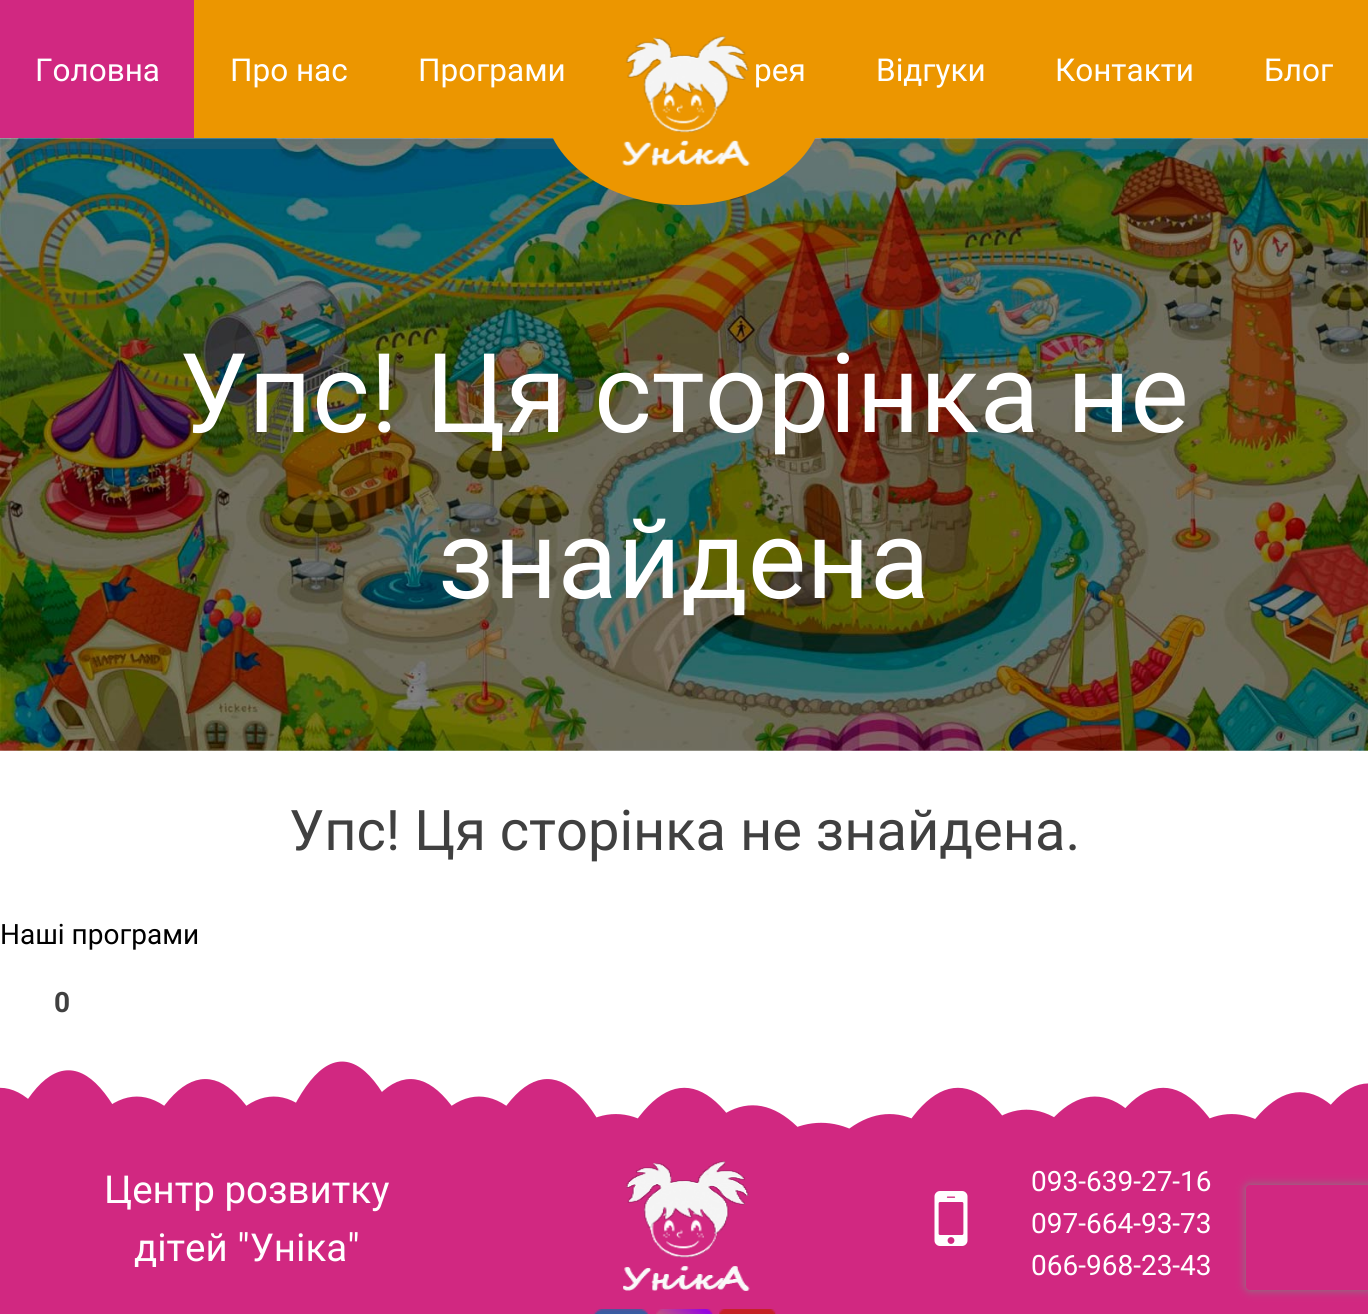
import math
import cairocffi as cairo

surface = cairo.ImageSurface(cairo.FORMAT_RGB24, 1368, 1314)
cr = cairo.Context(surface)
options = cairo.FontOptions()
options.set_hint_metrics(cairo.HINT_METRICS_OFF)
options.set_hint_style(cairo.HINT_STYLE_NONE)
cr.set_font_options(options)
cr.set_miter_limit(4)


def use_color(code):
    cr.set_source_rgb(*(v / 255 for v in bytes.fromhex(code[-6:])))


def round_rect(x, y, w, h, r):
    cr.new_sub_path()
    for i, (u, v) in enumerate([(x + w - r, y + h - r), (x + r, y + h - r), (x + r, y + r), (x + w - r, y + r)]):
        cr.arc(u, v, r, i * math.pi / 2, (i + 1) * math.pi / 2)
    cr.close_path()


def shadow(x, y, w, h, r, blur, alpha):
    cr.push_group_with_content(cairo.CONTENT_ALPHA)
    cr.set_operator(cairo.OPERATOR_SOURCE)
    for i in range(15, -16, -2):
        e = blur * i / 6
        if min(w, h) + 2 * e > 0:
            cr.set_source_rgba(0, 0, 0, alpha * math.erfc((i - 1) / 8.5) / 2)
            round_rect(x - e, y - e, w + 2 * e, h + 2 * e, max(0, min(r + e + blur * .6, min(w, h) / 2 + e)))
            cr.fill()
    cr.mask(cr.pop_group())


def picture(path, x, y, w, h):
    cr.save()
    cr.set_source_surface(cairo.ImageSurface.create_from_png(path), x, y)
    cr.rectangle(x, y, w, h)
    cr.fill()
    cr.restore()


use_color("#ffffff")
cr.paint()
picture("img2.png", 0, 138, 1368, 613)
cr.set_source_rgba(0.404, 0.4, 0.4, 0.2)
cr.new_path()
cr.move_to(11, 138)
cr.line_to(11, 149)
cr.line_to(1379, 149)
cr.line_to(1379, 11)
cr.line_to(1368, 11)
cr.line_to(1368, 138)
cr.close_path()
cr.fill()
use_color("#ec9600")
cr.rectangle(194, 0, 1174, 138)
cr.fill()
use_color("#d12881")
cr.rectangle(0, 0, 194, 138)
cr.fill()
cr.select_font_face("Roboto")
cr.set_font_size(31.5)
use_color("#ffffff")
cr.move_to(35, 81)
cr.show_text("Головна")
cr.move_to(230, 81)
cr.show_text("Про нас")
use_color("#ec9600")
cr.new_path()
cr.move_to(544, 0)
cr.line_to(824, 0)
cr.line_to(824, 102)
cr.curve_to(824, 159, 762, 205, 684, 205)
cr.curve_to(607, 205, 544, 159, 544, 102)
cr.close_path()
cr.fill()
use_color("#ffffff")
cr.move_to(418, 81)
cr.show_text("Програми")
picture("img1.png", 622, 35, 129, 131)
cr.move_to(754, 81)
cr.show_text("рея")
cr.move_to(876, 81)
cr.show_text("Відгуки")
cr.move_to(1055, 81)
cr.show_text("Контакти")
cr.move_to(1264, 81)
cr.show_text("Блог")
cr.set_font_size(110.25)
cr.move_to(179, 432)
cr.show_text("Упс! Ця сторінка не")
cr.move_to(438, 598)
cr.show_text("знайдена")
cr.set_font_size(56)
use_color("#404040")
cr.move_to(289, 850)
cr.show_text("Упс! Ця сторінка не знайдена.")
cr.set_font_size(28)
use_color("#000000")
cr.move_to(0, 944)
cr.show_text("Наші програми")
cr.select_font_face("Roboto", cairo.FONT_SLANT_NORMAL, cairo.FONT_WEIGHT_BOLD)
use_color("#404040")
cr.move_to(54, 1012)
cr.show_text("0")
picture("img3.png", 0, 1061, 1368, 99)
use_color("#d12881")
cr.rectangle(0, 1160, 1368, 154)
cr.fill()
cr.select_font_face("Roboto")
cr.set_font_size(38.5)
use_color("#ffffff")
cr.move_to(104, 1203)
cr.show_text("Центр розвитку")
cr.move_to(134, 1261)
cr.show_text("дітей \"Уніка\"")
picture("img4.png", 623, 1161, 127, 130)
picture("img5.png", 593, 1309, 56, 5)
picture("img6.png", 656, 1309, 57, 5)
picture("img7.png", 719, 1309, 57, 5)
cr.set_font_size(28)
cr.move_to(1031, 1191)
cr.show_text("093-639-27-16")
picture("img8.png", 934, 1191, 34, 55)
cr.move_to(1031, 1233)
cr.show_text("097-664-93-73")
cr.move_to(1031, 1275)
cr.show_text("066-968-23-43")
cr.save()
cr.set_fill_rule(cairo.FILL_RULE_EVEN_ODD)
cr.new_path()
cr.move_to(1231, 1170)
cr.line_to(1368, 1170)
cr.line_to(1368, 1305)
cr.line_to(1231, 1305)
cr.close_path()
cr.move_to(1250, 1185)
cr.line_to(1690, 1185)
cr.curve_to(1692, 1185, 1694, 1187, 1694, 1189)
cr.line_to(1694, 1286)
cr.curve_to(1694, 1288, 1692, 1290, 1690, 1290)
cr.line_to(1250, 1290)
cr.curve_to(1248, 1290, 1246, 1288, 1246, 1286)
cr.line_to(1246, 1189)
cr.curve_to(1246, 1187, 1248, 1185, 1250, 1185)
cr.close_path()
cr.clip()
use_color("#808080")
shadow(1246, 1185, 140, 105, 4, 4.5, 1)
cr.restore()
surface.write_to_png("result.png")
